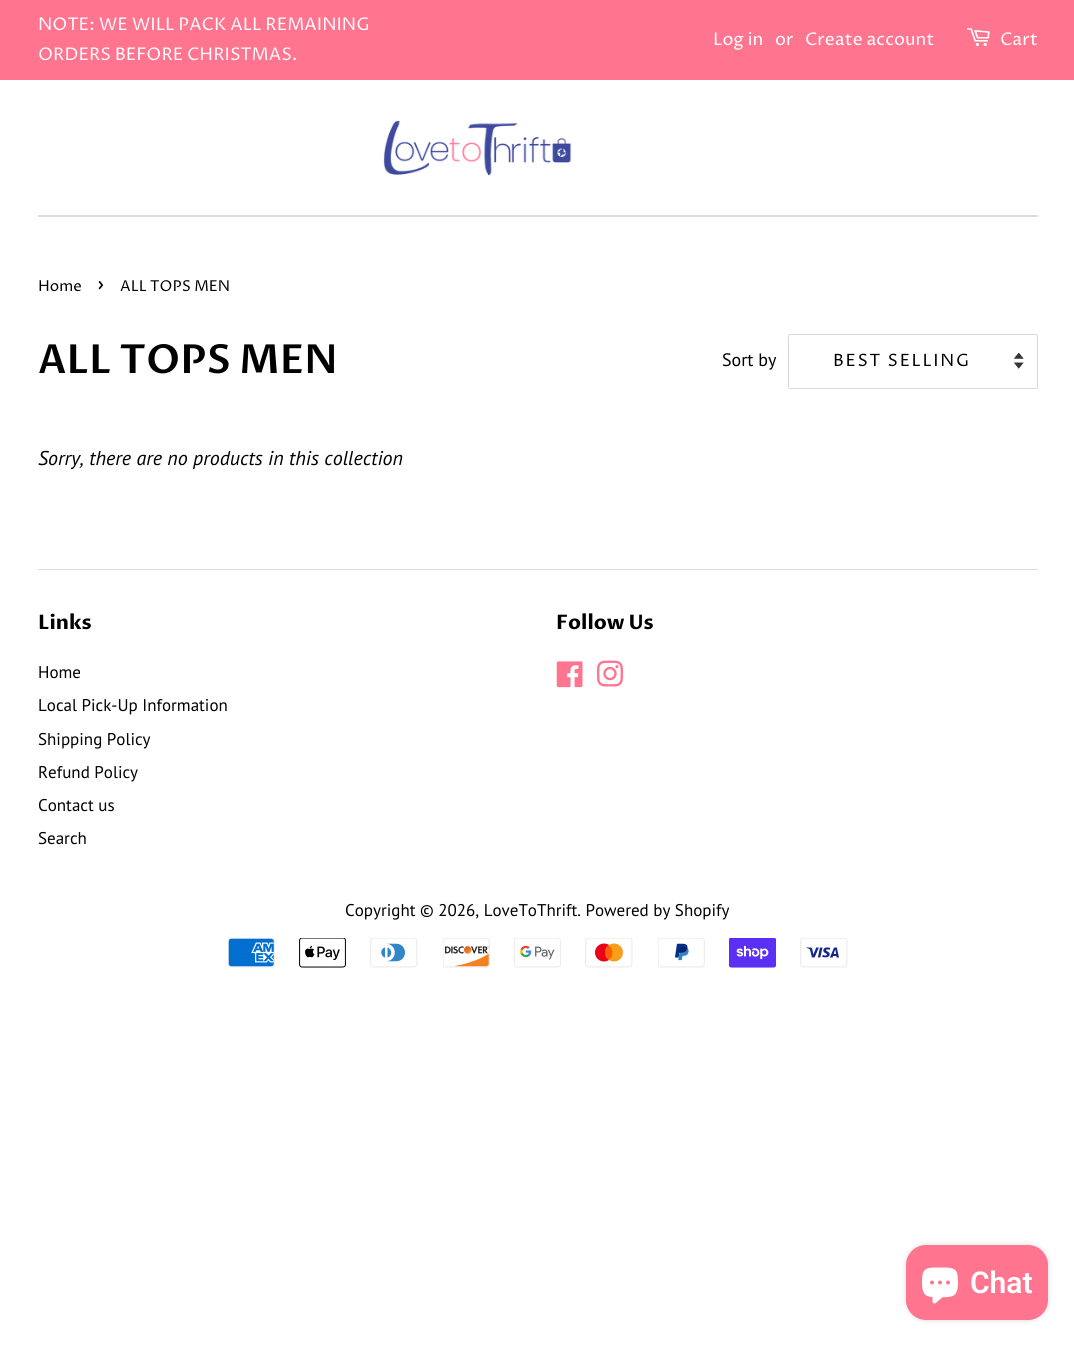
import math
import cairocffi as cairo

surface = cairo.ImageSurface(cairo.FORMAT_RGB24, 1074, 1346)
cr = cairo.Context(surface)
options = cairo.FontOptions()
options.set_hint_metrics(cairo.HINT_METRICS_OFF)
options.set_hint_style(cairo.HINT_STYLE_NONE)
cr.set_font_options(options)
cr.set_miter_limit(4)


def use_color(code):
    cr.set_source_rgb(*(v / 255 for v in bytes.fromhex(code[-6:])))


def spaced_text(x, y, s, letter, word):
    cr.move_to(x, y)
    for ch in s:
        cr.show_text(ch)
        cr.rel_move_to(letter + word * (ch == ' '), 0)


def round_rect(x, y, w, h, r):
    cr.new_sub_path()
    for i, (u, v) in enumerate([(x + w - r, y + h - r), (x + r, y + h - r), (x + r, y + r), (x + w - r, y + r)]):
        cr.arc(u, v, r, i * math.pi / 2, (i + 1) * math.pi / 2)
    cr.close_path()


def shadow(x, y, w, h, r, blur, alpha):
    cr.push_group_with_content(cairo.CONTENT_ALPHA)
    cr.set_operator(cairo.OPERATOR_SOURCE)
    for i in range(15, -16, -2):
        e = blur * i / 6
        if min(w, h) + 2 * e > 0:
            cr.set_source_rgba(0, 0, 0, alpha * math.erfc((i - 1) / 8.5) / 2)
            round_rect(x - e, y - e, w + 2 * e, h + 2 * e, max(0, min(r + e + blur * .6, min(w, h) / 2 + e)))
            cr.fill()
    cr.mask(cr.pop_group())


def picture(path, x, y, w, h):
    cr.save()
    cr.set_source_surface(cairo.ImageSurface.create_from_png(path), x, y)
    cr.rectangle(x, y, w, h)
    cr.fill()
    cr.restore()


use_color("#ffffff")
cr.paint()
use_color("#ff748e")
cr.rectangle(0, 0, 1074, 80)
cr.fill()
cr.select_font_face("Proza Libre")
cr.set_font_size(17.5)
use_color("#ffffff")
cr.move_to(38, 30)
cr.show_text("NOTE: WE WILL PACK ALL REMAINING")
cr.move_to(38, 60)
cr.show_text("ORDERS BEFORE CHRISTMAS.")
cr.move_to(713, 45)
cr.show_text("Log in")
cr.move_to(775, 45)
cr.show_text("or")
cr.move_to(805, 45)
cr.show_text("Create account")
picture("img1.png", 966, 28, 24, 19)
cr.move_to(1000, 45)
cr.show_text("Cart")
picture("img2.png", 383, 120, 189, 56)
use_color("#dddddd")
cr.rectangle(38, 215, 1000, 2)
cr.fill()
cr.set_font_size(15)
use_color("#000000")
cr.move_to(38, 291)
cr.show_text("Home")
cr.set_font_size(21)
cr.move_to(97, 291)
cr.show_text("›")
cr.set_font_size(15)
cr.move_to(120, 291)
cr.show_text("ALL TOPS MEN")
cr.select_font_face("Proza Libre SemiBold")
cr.set_font_size(40)
cr.move_to(38, 373)
cr.show_text("ALL TOPS MEN")
cr.select_font_face("PT Sans")
cr.set_font_size(18)
cr.move_to(722, 366)
cr.show_text("Sort by")
picture("img3.png", 1014, 353, 10, 16)
round_rect(788.5, 334.5, 249, 54, 2)
use_color("#d9d9d9")
cr.set_line_width(1)
cr.stroke()
cr.select_font_face("Proza Libre")
cr.set_font_size(17)
use_color("#000000")
spaced_text(833, 366, "BEST SELLING", 1.75, 0)
cr.select_font_face("PT Sans", cairo.FONT_SLANT_ITALIC)
cr.set_font_size(20)
cr.move_to(38, 465)
cr.show_text("Sorry, there are no products in this collection")
use_color("#dddddd")
cr.rectangle(38, 569, 1000, 1)
cr.fill()
cr.select_font_face("Proza Libre", cairo.FONT_SLANT_NORMAL, cairo.FONT_WEIGHT_BOLD)
use_color("#000000")
cr.move_to(38, 629)
cr.show_text("Links")
cr.select_font_face("PT Sans")
cr.set_font_size(17)
cr.move_to(38, 678)
cr.show_text("Home")
cr.move_to(38, 711)
cr.show_text("Local Pick-Up Information")
cr.move_to(38, 745)
cr.show_text("Shipping Policy")
cr.move_to(38, 778)
cr.show_text("Refund Policy")
cr.move_to(38, 811)
cr.show_text("Contact us")
cr.move_to(38, 844)
cr.show_text("Search")
cr.select_font_face("Proza Libre", cairo.FONT_SLANT_NORMAL, cairo.FONT_WEIGHT_BOLD)
cr.set_font_size(20)
cr.move_to(556, 629)
cr.show_text("Follow Us")
picture("img4.png", 556, 661, 27, 27)
picture("img5.png", 597, 660, 26, 27)
cr.select_font_face("PT Sans")
cr.set_font_size(17)
cr.move_to(345, 916)
cr.show_text("Copyright © 2026, LoveToThrift. Powered by Shopify")
picture("img6.png", 228, 938, 47, 30)
picture("img7.png", 299, 938, 47, 30)
picture("img8.png", 370, 938, 48, 30)
picture("img9.png", 443, 938, 47, 30)
picture("img10.png", 514, 938, 47, 30)
picture("img11.png", 585, 938, 48, 30)
picture("img12.png", 658, 938, 47, 30)
picture("img13.png", 729, 938, 47, 30)
picture("img14.png", 800, 938, 48, 30)
use_color("#000000")
shadow(906, 1245, 142, 75, 20, 3, 0.15)
use_color("#ff758f")
round_rect(906, 1245, 142, 75, 20)
cr.fill()
picture("img15.png", 922, 1267, 36, 37)
cr.select_font_face("Roboto SemiBold")
cr.set_font_size(30)
use_color("#ffffff")
cr.move_to(970, 1293)
cr.show_text("Chat")
surface.write_to_png("result.png")
